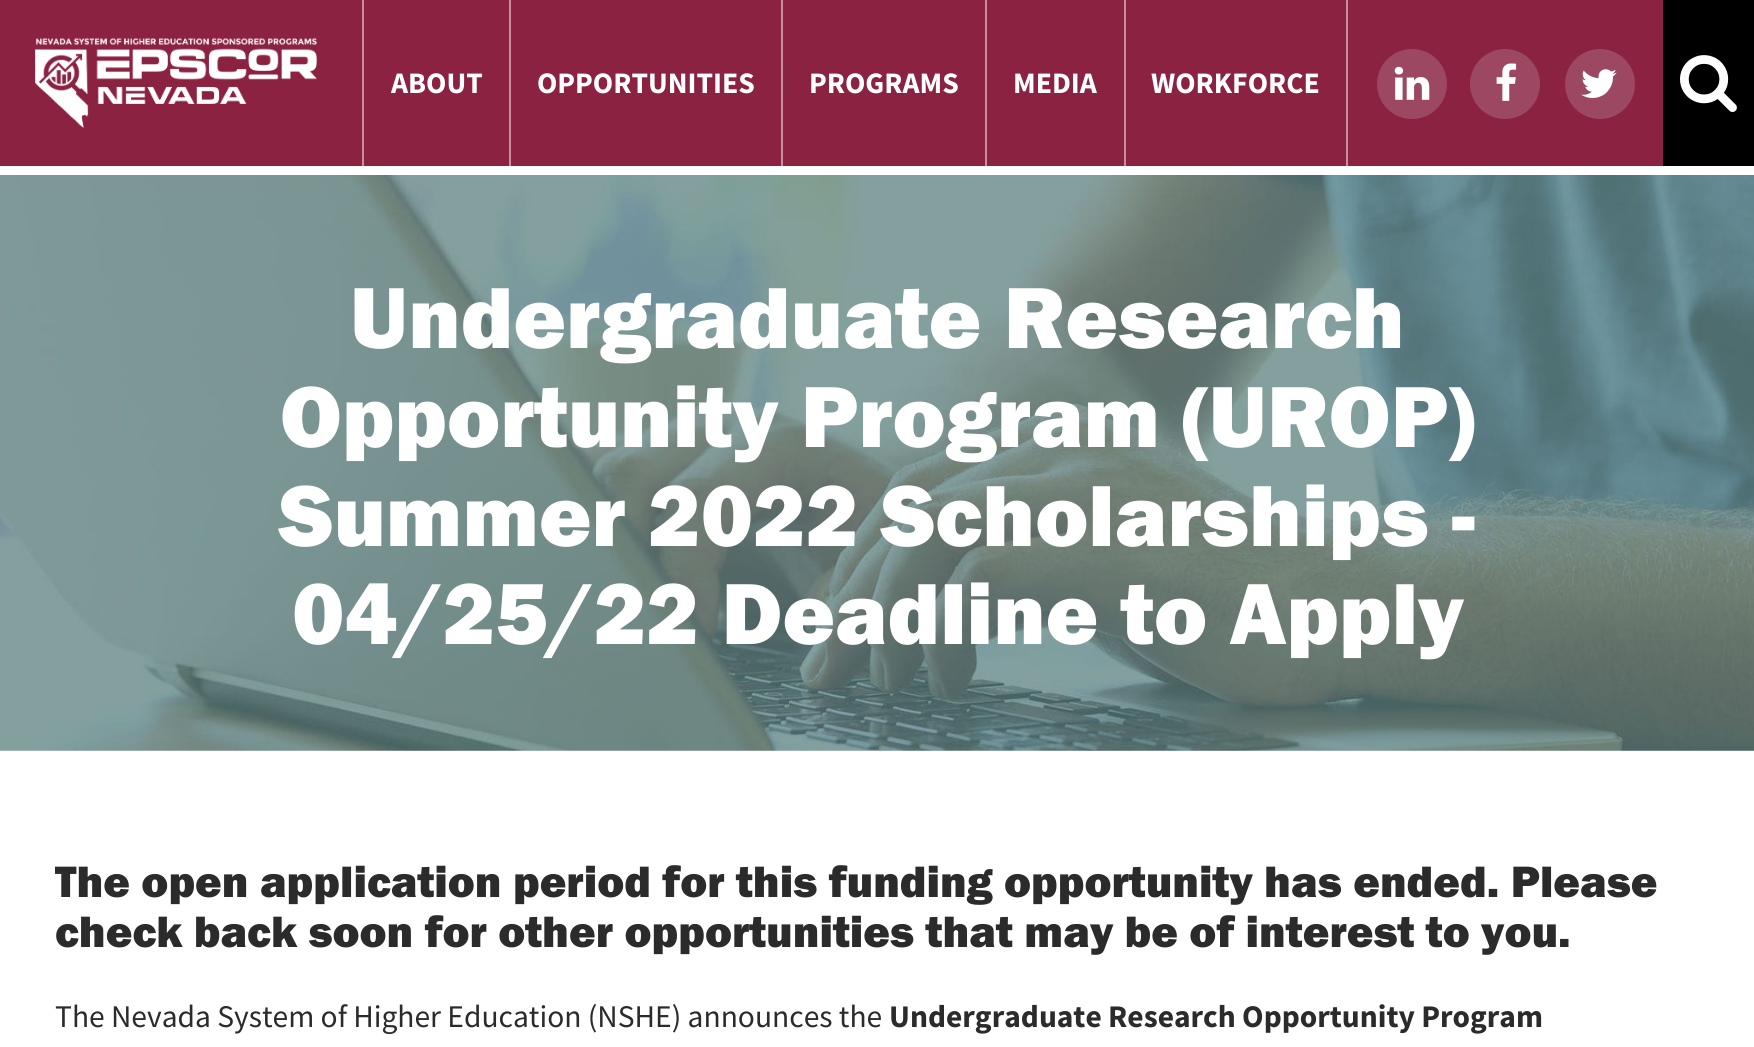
import math
import cairocffi as cairo

surface = cairo.ImageSurface(cairo.FORMAT_RGB24, 1754, 1047)
cr = cairo.Context(surface)
options = cairo.FontOptions()
options.set_hint_metrics(cairo.HINT_METRICS_OFF)
options.set_hint_style(cairo.HINT_STYLE_NONE)
cr.set_font_options(options)
cr.set_miter_limit(4)


def use_color(code):
    cr.set_source_rgb(*(v / 255 for v in bytes.fromhex(code[-6:])))


def picture(path, x, y, w, h):
    cr.save()
    cr.set_source_surface(cairo.ImageSurface.create_from_png(path), x, y)
    cr.rectangle(x, y, w, h)
    cr.fill()
    cr.restore()


use_color("#ffffff")
cr.paint()
use_color("#8b2242")
cr.rectangle(0, 0, 1663, 166)
cr.fill()
picture("img1.png", 35, 38, 282, 90)
use_color("#c591a1")
cr.rectangle(362, 0, 2, 166)
cr.fill()
cr.select_font_face("Source Sans Pro", cairo.FONT_SLANT_NORMAL, cairo.FONT_WEIGHT_BOLD)
cr.set_font_size(29.75)
use_color("#ffffff")
cr.move_to(391, 93)
cr.show_text("ABOUT")
use_color("#c591a1")
cr.rectangle(509, 0, 2, 166)
cr.fill()
use_color("#ffffff")
cr.move_to(537, 93)
cr.show_text("OPPORTUNITIES")
use_color("#c591a1")
cr.rectangle(781, 0, 2, 166)
cr.fill()
use_color("#ffffff")
cr.move_to(809, 93)
cr.show_text("PROGRAMS")
use_color("#c591a1")
cr.rectangle(985, 0, 2, 166)
cr.fill()
use_color("#ffffff")
cr.move_to(1013, 93)
cr.show_text("MEDIA")
use_color("#c591a1")
cr.rectangle(1346, 0, 2, 166)
cr.fill()
cr.rectangle(1124, 0, 2, 166)
cr.fill()
use_color("#ffffff")
cr.move_to(1151, 93)
cr.show_text("WORKFORCE")
use_color("#9c4862")
cr.new_path()
cr.arc(1412, 84, 35, 0, 2 * math.pi)
cr.fill()
picture("img2.png", 1394, 66, 36, 34)
cr.arc(1505, 84, 35, 0, 2 * math.pi)
cr.fill()
picture("img3.png", 1496, 63, 21, 38)
cr.arc(1600, 84, 35, 0, 2 * math.pi)
cr.fill()
picture("img4.png", 1581, 69, 36, 29)
use_color("#000000")
cr.rectangle(1663, 0, 91, 166)
cr.fill()
picture("img5.png", 1680, 55, 57, 57)
picture("img6.png", 0, 175, 1754, 576)
cr.select_font_face("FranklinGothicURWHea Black")
cr.set_font_size(89.6)
use_color("#ffffff")
cr.move_to(350, 348)
cr.show_text("Undergraduate Research")
cr.move_to(280, 447)
cr.show_text("Opportunity Program (UROP)")
cr.move_to(279, 546)
cr.show_text("Summer 2022 Scholarships -")
cr.move_to(292, 644)
cr.show_text("04/25/22 Deadline to Apply")
cr.set_font_size(45.5)
use_color("#2b2b2b")
cr.move_to(55, 897)
cr.show_text("The open application period for this funding opportunity has ended. Please")
cr.move_to(55, 947)
cr.show_text("check back soon for other opportunities that may be of interest to you.")
cr.select_font_face("Source Sans Pro")
cr.set_font_size(31.5)
cr.move_to(55, 1027)
cr.show_text("The Nevada System of Higher Education (NSHE) announces the")
cr.select_font_face("Source Sans Pro", cairo.FONT_SLANT_NORMAL, cairo.FONT_WEIGHT_BOLD)
cr.move_to(889, 1027)
cr.show_text("Undergraduate Research Opportunity Program")
surface.write_to_png("result.png")
